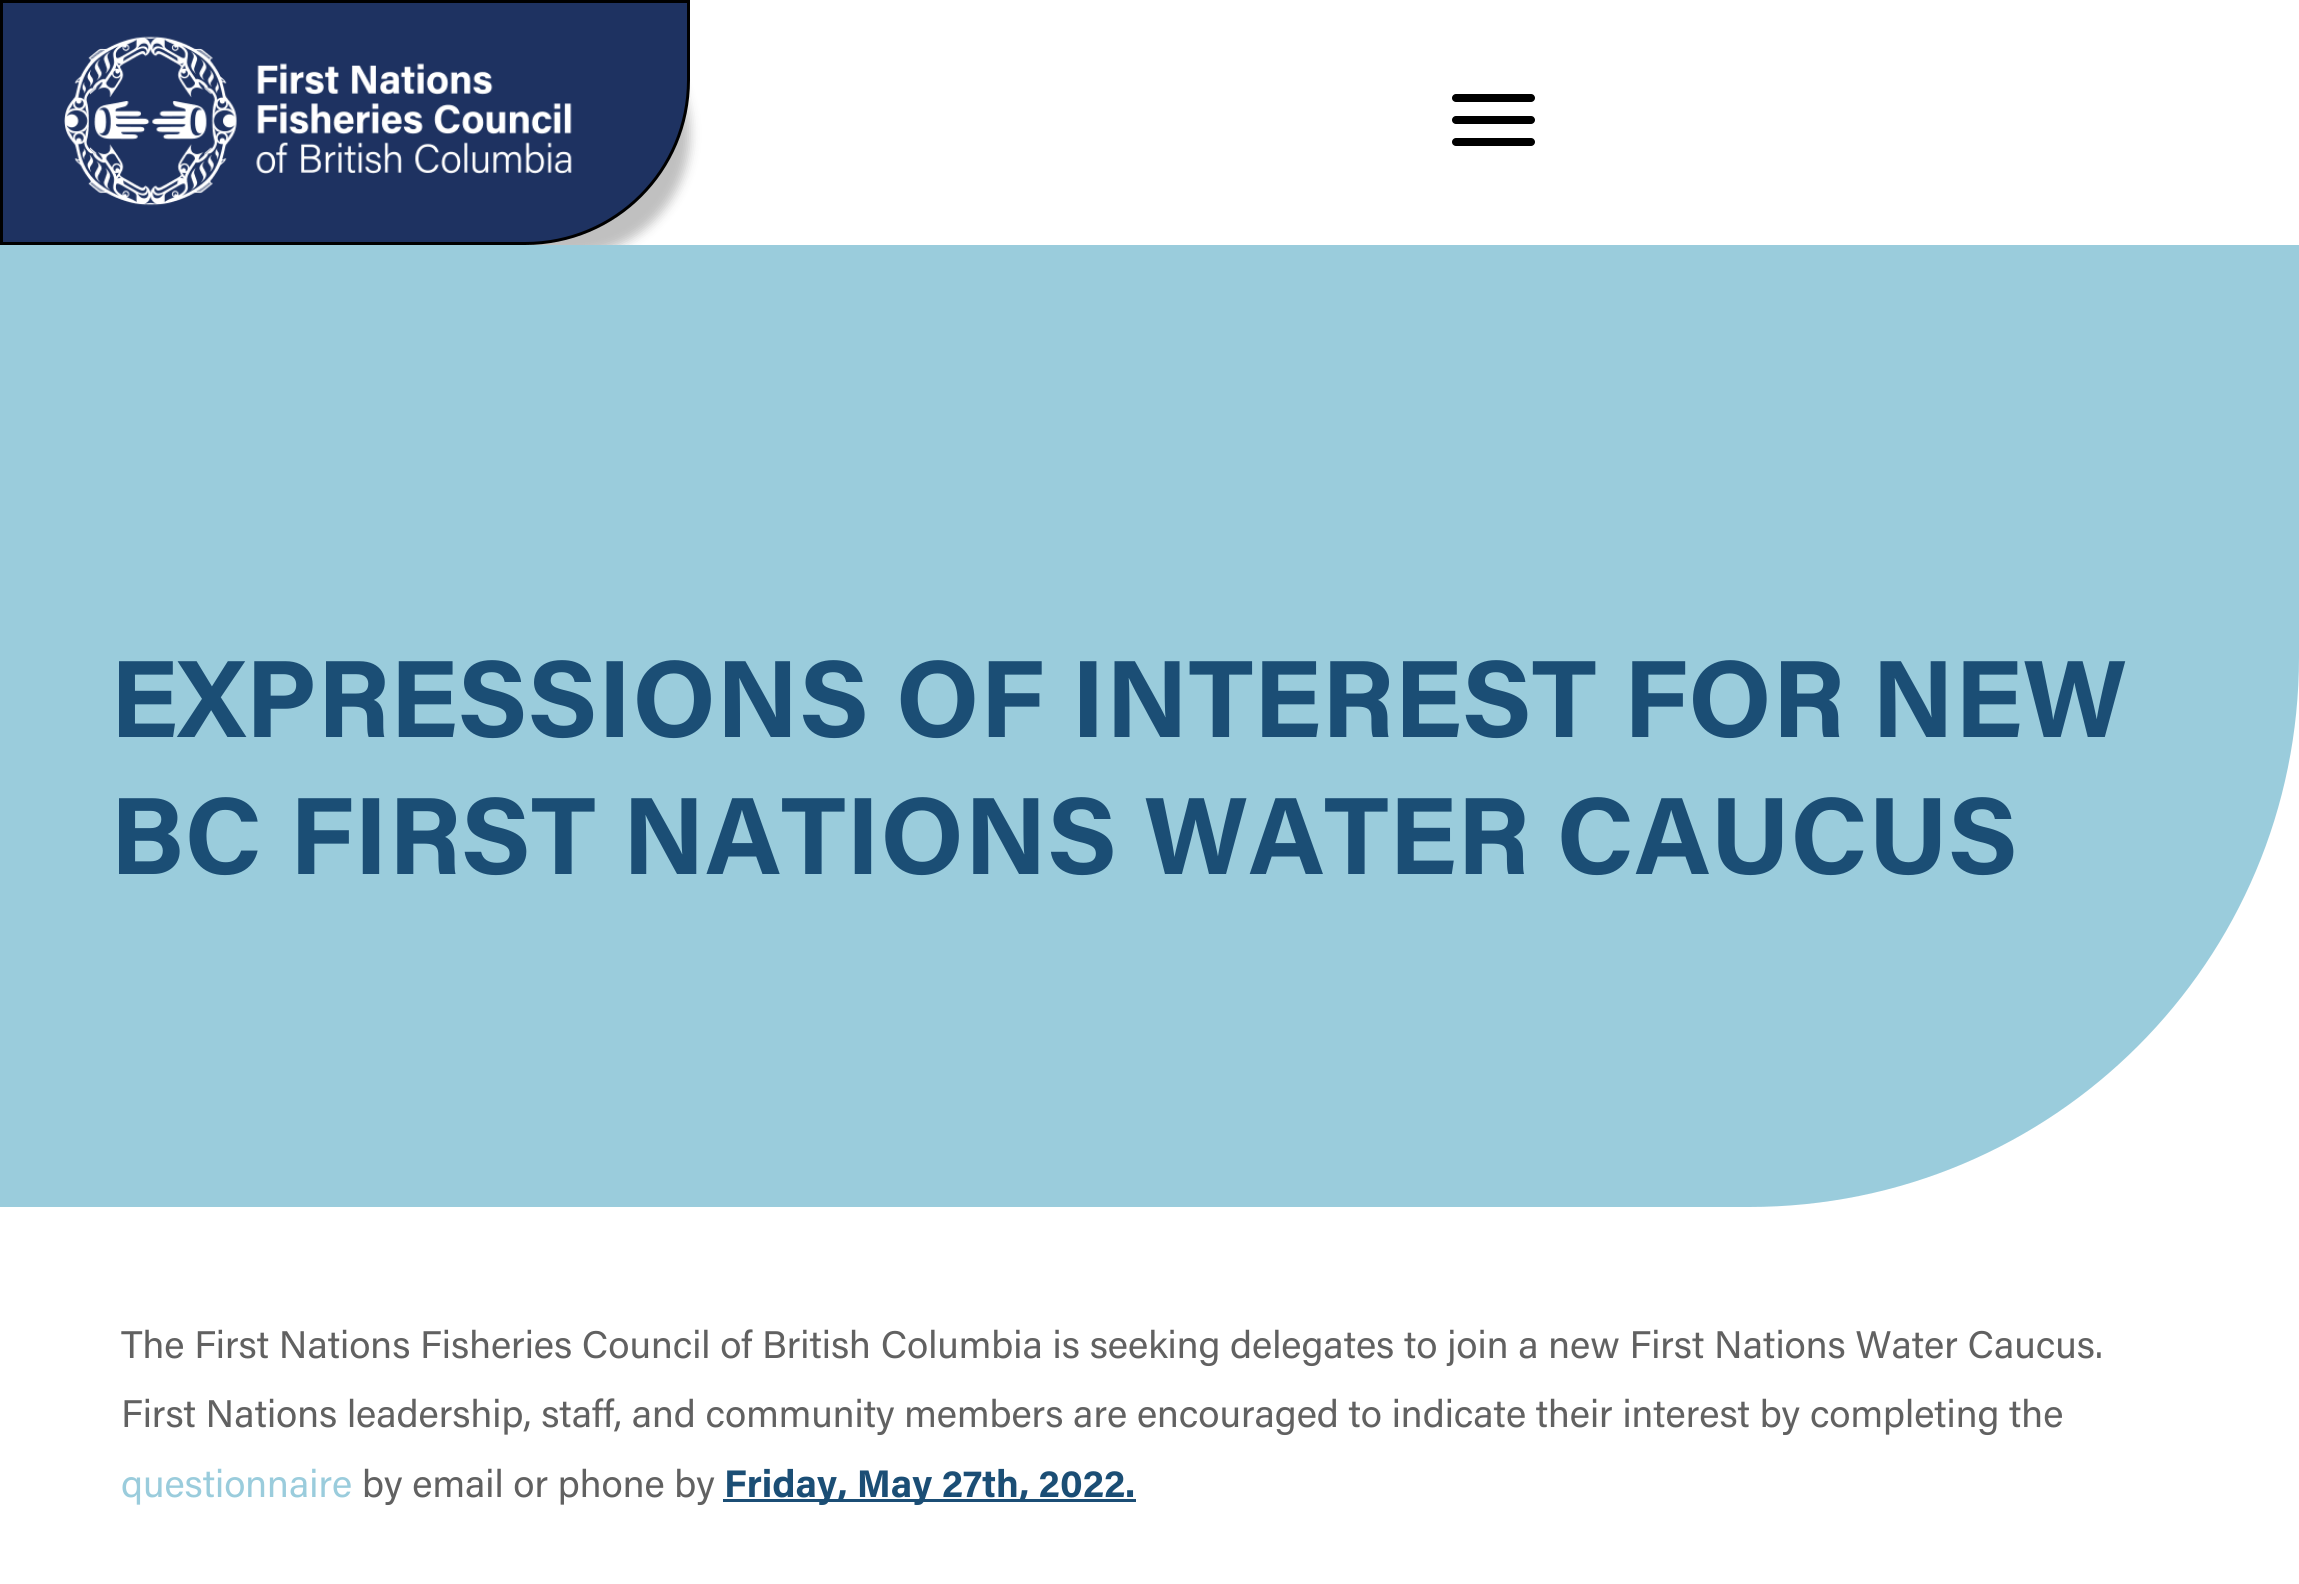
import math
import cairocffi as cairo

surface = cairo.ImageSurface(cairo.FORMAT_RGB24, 2299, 1584)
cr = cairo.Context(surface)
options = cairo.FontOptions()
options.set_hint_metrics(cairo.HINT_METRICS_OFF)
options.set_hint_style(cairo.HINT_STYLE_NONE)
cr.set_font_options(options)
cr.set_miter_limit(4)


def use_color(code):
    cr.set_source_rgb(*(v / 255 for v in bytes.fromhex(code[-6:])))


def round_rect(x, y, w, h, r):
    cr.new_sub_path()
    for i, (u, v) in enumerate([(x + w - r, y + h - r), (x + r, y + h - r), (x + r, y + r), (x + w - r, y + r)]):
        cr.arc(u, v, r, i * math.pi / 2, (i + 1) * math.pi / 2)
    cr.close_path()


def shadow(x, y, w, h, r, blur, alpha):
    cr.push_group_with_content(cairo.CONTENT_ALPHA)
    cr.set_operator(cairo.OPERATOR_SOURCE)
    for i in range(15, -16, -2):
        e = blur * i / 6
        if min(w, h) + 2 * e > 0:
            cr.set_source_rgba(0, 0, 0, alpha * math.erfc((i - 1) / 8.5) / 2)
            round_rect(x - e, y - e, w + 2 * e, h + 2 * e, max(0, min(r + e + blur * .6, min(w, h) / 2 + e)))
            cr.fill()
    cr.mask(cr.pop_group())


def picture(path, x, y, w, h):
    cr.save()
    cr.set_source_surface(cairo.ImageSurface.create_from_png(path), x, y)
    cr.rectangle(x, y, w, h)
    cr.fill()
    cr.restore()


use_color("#ffffff")
cr.paint()
use_color("#000000")
shadow(0, 11, 690, 245, 165, 5.5, 0.25)
use_color("#1e3261")
cr.new_path()
cr.move_to(1.5, 1.5)
cr.line_to(688.5, 1.5)
cr.line_to(688.5, 80)
cr.curve_to(688.5, 170.5, 615.5, 243.5, 525, 243.5)
cr.line_to(1.5, 243.5)
cr.close_path()
cr.fill_preserve()
use_color("#000000")
cr.set_line_width(3)
cr.stroke()
picture("img1.png", 64, 36, 508, 170)
round_rect(1452, 116, 83, 8, 4)
cr.fill()
round_rect(1452, 94, 83, 8, 4)
cr.fill()
round_rect(1452, 138, 83, 8, 4)
cr.fill()
use_color("#9accdc")
cr.new_path()
cr.move_to(0, 245)
cr.line_to(2299, 245)
cr.line_to(2299, 657)
cr.curve_to(2299, 961, 2053, 1207, 1749, 1207)
cr.line_to(0, 1207)
cr.close_path()
cr.fill()
cr.select_font_face("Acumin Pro", cairo.FONT_SLANT_NORMAL, cairo.FONT_WEIGHT_BOLD)
cr.set_font_size(110)
use_color("#1b4e75")
cr.move_to(110, 737)
cr.show_text("EXPRESSIONS OF INTEREST FOR NEW")
cr.move_to(110, 874)
cr.show_text("BC FIRST NATIONS WATER CAUCUS")
cr.select_font_face("Acumin Pro")
cr.set_font_size(38.5)
use_color("#616161")
cr.move_to(121, 1358)
cr.show_text("The First Nations Fisheries Council of British Columbia is seeking delegates to join a new First Nations Water Caucus.")
cr.move_to(121, 1427)
cr.show_text("First Nations leadership, staff, and community members are encouraged to indicate their interest by completing the")
use_color("#9accdc")
cr.move_to(121, 1497)
cr.show_text("questionnaire")
use_color("#616161")
cr.move_to(362, 1497)
cr.show_text("by email or phone by")
use_color("#1b4e75")
cr.rectangle(723, 1499, 413, 3)
cr.fill()
cr.select_font_face("Acumin Pro", cairo.FONT_SLANT_NORMAL, cairo.FONT_WEIGHT_BOLD)
cr.move_to(724, 1497)
cr.show_text("Friday, May 27th, 2022.")
surface.write_to_png("result.png")
